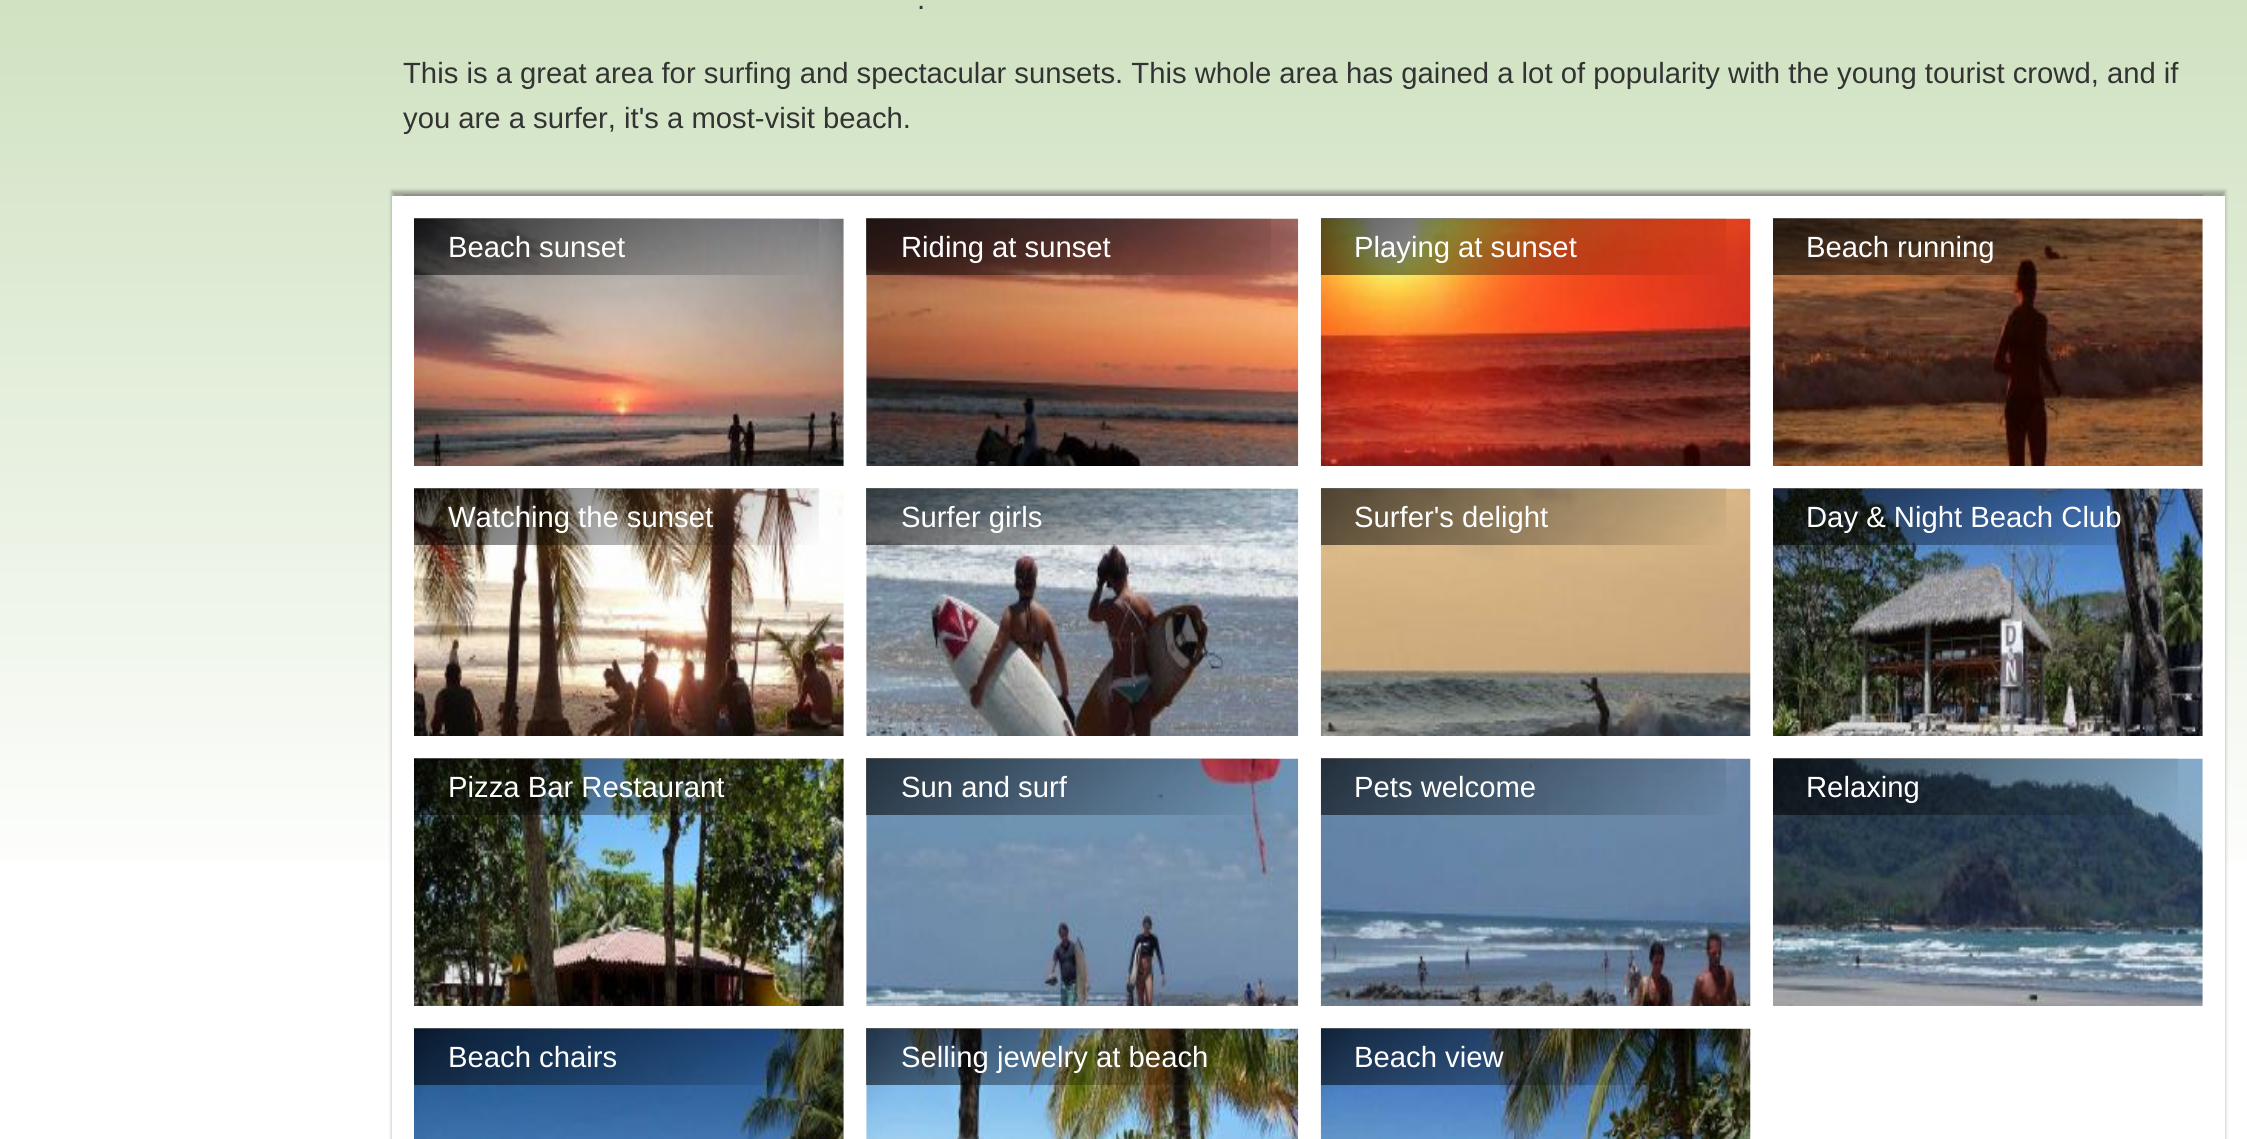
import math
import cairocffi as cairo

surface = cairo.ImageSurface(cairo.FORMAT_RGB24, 2247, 1139)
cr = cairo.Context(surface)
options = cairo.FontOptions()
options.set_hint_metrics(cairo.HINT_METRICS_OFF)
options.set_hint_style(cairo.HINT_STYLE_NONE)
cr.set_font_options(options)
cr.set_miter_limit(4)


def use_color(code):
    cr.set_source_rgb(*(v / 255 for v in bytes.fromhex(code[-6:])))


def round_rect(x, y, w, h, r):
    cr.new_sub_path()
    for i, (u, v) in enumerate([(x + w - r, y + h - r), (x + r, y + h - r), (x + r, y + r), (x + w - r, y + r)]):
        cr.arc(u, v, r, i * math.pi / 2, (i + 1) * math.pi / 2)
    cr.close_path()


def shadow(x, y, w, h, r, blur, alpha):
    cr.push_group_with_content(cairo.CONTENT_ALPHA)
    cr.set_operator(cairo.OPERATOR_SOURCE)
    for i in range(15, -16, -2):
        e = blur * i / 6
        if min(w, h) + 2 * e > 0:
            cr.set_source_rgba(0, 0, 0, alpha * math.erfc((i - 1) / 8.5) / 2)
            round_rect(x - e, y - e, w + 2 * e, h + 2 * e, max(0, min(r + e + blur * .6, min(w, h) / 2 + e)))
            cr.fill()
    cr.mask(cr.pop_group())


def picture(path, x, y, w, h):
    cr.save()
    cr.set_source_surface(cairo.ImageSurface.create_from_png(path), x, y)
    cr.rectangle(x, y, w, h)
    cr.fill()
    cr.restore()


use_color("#ffffff")
cr.paint()
gradient = cairo.LinearGradient(1124, -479, 1124, 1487)
gradient.add_color_stop_rgba(0.2, 0.796, 0.875, 0.733, 1)
gradient.add_color_stop_rgba(0.7, 1, 1, 1, 1)
cr.set_source(gradient)
cr.rectangle(0, 0, 2247, 861)
cr.fill()
cr.select_font_face("Liberation Sans")
cr.set_font_size(29.25)
use_color("#333333")
cr.move_to(917, 9)
cr.show_text(".")
cr.move_to(403, 83)
cr.show_text("This is a great area for surfing and spectacular sunsets. This whole area has gained a lot of popularity with the young tourist crowd, and if")
cr.move_to(403, 128)
cr.show_text("you are a surfer, it's a most-visit beach.")
use_color("#cccccc")
cr.rectangle(403, 194, 1800, 2)
cr.fill()
use_color("#000000")
shadow(392, 191, 1833, 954, 0, 2, 0.3)
use_color("#ffffff")
cr.rectangle(392, 196, 1833, 943)
cr.fill()
picture("img1.png", 414, 218, 430, 248)
gradient = cairo.LinearGradient(501, 131, 732, 362)
gradient.add_color_stop_rgba(0, 0, 0, 0, 0.65)
gradient.add_color_stop_rgba(1, 0, 0, 0, 0)
cr.set_source(gradient)
cr.rectangle(414, 218, 405, 57)
cr.fill()
use_color("#ffffff")
cr.move_to(448, 257)
cr.show_text("Beach sunset")
picture("img2.png", 866, 218, 433, 248)
gradient = cairo.LinearGradient(953, 131, 1184, 362)
gradient.add_color_stop_rgba(0, 0, 0, 0, 0.65)
gradient.add_color_stop_rgba(1, 0, 0, 0, 0)
cr.set_source(gradient)
cr.rectangle(866, 218, 405, 57)
cr.fill()
use_color("#ffffff")
cr.move_to(901, 257)
cr.show_text("Riding at sunset")
picture("img3.png", 1320, 218, 431, 248)
gradient = cairo.LinearGradient(1408, 131, 1639, 362)
gradient.add_color_stop_rgba(0, 0, 0, 0, 0.65)
gradient.add_color_stop_rgba(1, 0, 0, 0, 0)
cr.set_source(gradient)
cr.rectangle(1321, 218, 405, 57)
cr.fill()
use_color("#ffffff")
cr.move_to(1354, 257)
cr.show_text("Playing at sunset")
picture("img4.png", 1773, 218, 430, 248)
gradient = cairo.LinearGradient(1860, 131, 2091, 362)
gradient.add_color_stop_rgba(0, 0, 0, 0, 0.65)
gradient.add_color_stop_rgba(1, 0, 0, 0, 0)
cr.set_source(gradient)
cr.rectangle(1773, 218, 405, 57)
cr.fill()
use_color("#ffffff")
cr.move_to(1806, 257)
cr.show_text("Beach running")
picture("img5.png", 414, 488, 430, 248)
gradient = cairo.LinearGradient(501, 401, 732, 632)
gradient.add_color_stop_rgba(0, 0, 0, 0, 0.65)
gradient.add_color_stop_rgba(1, 0, 0, 0, 0)
cr.set_source(gradient)
cr.rectangle(414, 488, 405, 57)
cr.fill()
use_color("#ffffff")
cr.move_to(448, 527)
cr.show_text("Watching the sunset")
picture("img6.png", 866, 488, 433, 248)
gradient = cairo.LinearGradient(953, 401, 1184, 632)
gradient.add_color_stop_rgba(0, 0, 0, 0, 0.65)
gradient.add_color_stop_rgba(1, 0, 0, 0, 0)
cr.set_source(gradient)
cr.rectangle(866, 488, 405, 57)
cr.fill()
use_color("#ffffff")
cr.move_to(901, 527)
cr.show_text("Surfer girls")
picture("img7.png", 1320, 488, 431, 248)
gradient = cairo.LinearGradient(1408, 401, 1639, 632)
gradient.add_color_stop_rgba(0, 0, 0, 0, 0.65)
gradient.add_color_stop_rgba(1, 0, 0, 0, 0)
cr.set_source(gradient)
cr.rectangle(1321, 488, 405, 57)
cr.fill()
use_color("#ffffff")
cr.move_to(1354, 527)
cr.show_text("Surfer's delight")
picture("img8.png", 1773, 488, 430, 248)
gradient = cairo.LinearGradient(1860, 401, 2091, 632)
gradient.add_color_stop_rgba(0, 0, 0, 0, 0.65)
gradient.add_color_stop_rgba(1, 0, 0, 0, 0)
cr.set_source(gradient)
cr.rectangle(1773, 488, 405, 57)
cr.fill()
use_color("#ffffff")
cr.move_to(1806, 527)
cr.show_text("Day & Night Beach Club")
picture("img9.png", 414, 758, 430, 248)
gradient = cairo.LinearGradient(501, 671, 732, 902)
gradient.add_color_stop_rgba(0, 0, 0, 0, 0.65)
gradient.add_color_stop_rgba(1, 0, 0, 0, 0)
cr.set_source(gradient)
cr.rectangle(414, 758, 405, 57)
cr.fill()
use_color("#ffffff")
cr.move_to(448, 797)
cr.show_text("Pizza Bar Restaurant")
picture("img10.png", 866, 758, 433, 248)
gradient = cairo.LinearGradient(953, 671, 1184, 902)
gradient.add_color_stop_rgba(0, 0, 0, 0, 0.65)
gradient.add_color_stop_rgba(1, 0, 0, 0, 0)
cr.set_source(gradient)
cr.rectangle(866, 758, 405, 57)
cr.fill()
use_color("#ffffff")
cr.move_to(901, 797)
cr.show_text("Sun and surf")
picture("img11.png", 1320, 758, 431, 248)
gradient = cairo.LinearGradient(1408, 671, 1639, 902)
gradient.add_color_stop_rgba(0, 0, 0, 0, 0.65)
gradient.add_color_stop_rgba(1, 0, 0, 0, 0)
cr.set_source(gradient)
cr.rectangle(1321, 758, 405, 57)
cr.fill()
use_color("#ffffff")
cr.move_to(1354, 797)
cr.show_text("Pets welcome")
picture("img12.png", 1773, 758, 430, 248)
gradient = cairo.LinearGradient(1860, 671, 2091, 902)
gradient.add_color_stop_rgba(0, 0, 0, 0, 0.65)
gradient.add_color_stop_rgba(1, 0, 0, 0, 0)
cr.set_source(gradient)
cr.rectangle(1773, 758, 405, 57)
cr.fill()
use_color("#ffffff")
cr.move_to(1806, 797)
cr.show_text("Relaxing")
picture("img13.png", 414, 1028, 430, 111)
gradient = cairo.LinearGradient(501, 941, 732, 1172)
gradient.add_color_stop_rgba(0, 0, 0, 0, 0.65)
gradient.add_color_stop_rgba(1, 0, 0, 0, 0)
cr.set_source(gradient)
cr.rectangle(414, 1028, 405, 57)
cr.fill()
use_color("#ffffff")
cr.move_to(448, 1067)
cr.show_text("Beach chairs")
picture("img14.png", 866, 1028, 433, 111)
gradient = cairo.LinearGradient(953, 941, 1184, 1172)
gradient.add_color_stop_rgba(0, 0, 0, 0, 0.65)
gradient.add_color_stop_rgba(1, 0, 0, 0, 0)
cr.set_source(gradient)
cr.rectangle(866, 1028, 405, 57)
cr.fill()
use_color("#ffffff")
cr.move_to(901, 1067)
cr.show_text("Selling jewelry at beach")
picture("img15.png", 1320, 1028, 431, 111)
gradient = cairo.LinearGradient(1408, 941, 1639, 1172)
gradient.add_color_stop_rgba(0, 0, 0, 0, 0.65)
gradient.add_color_stop_rgba(1, 0, 0, 0, 0)
cr.set_source(gradient)
cr.rectangle(1321, 1028, 405, 57)
cr.fill()
use_color("#ffffff")
cr.move_to(1354, 1067)
cr.show_text("Beach view")
surface.write_to_png("result.png")
